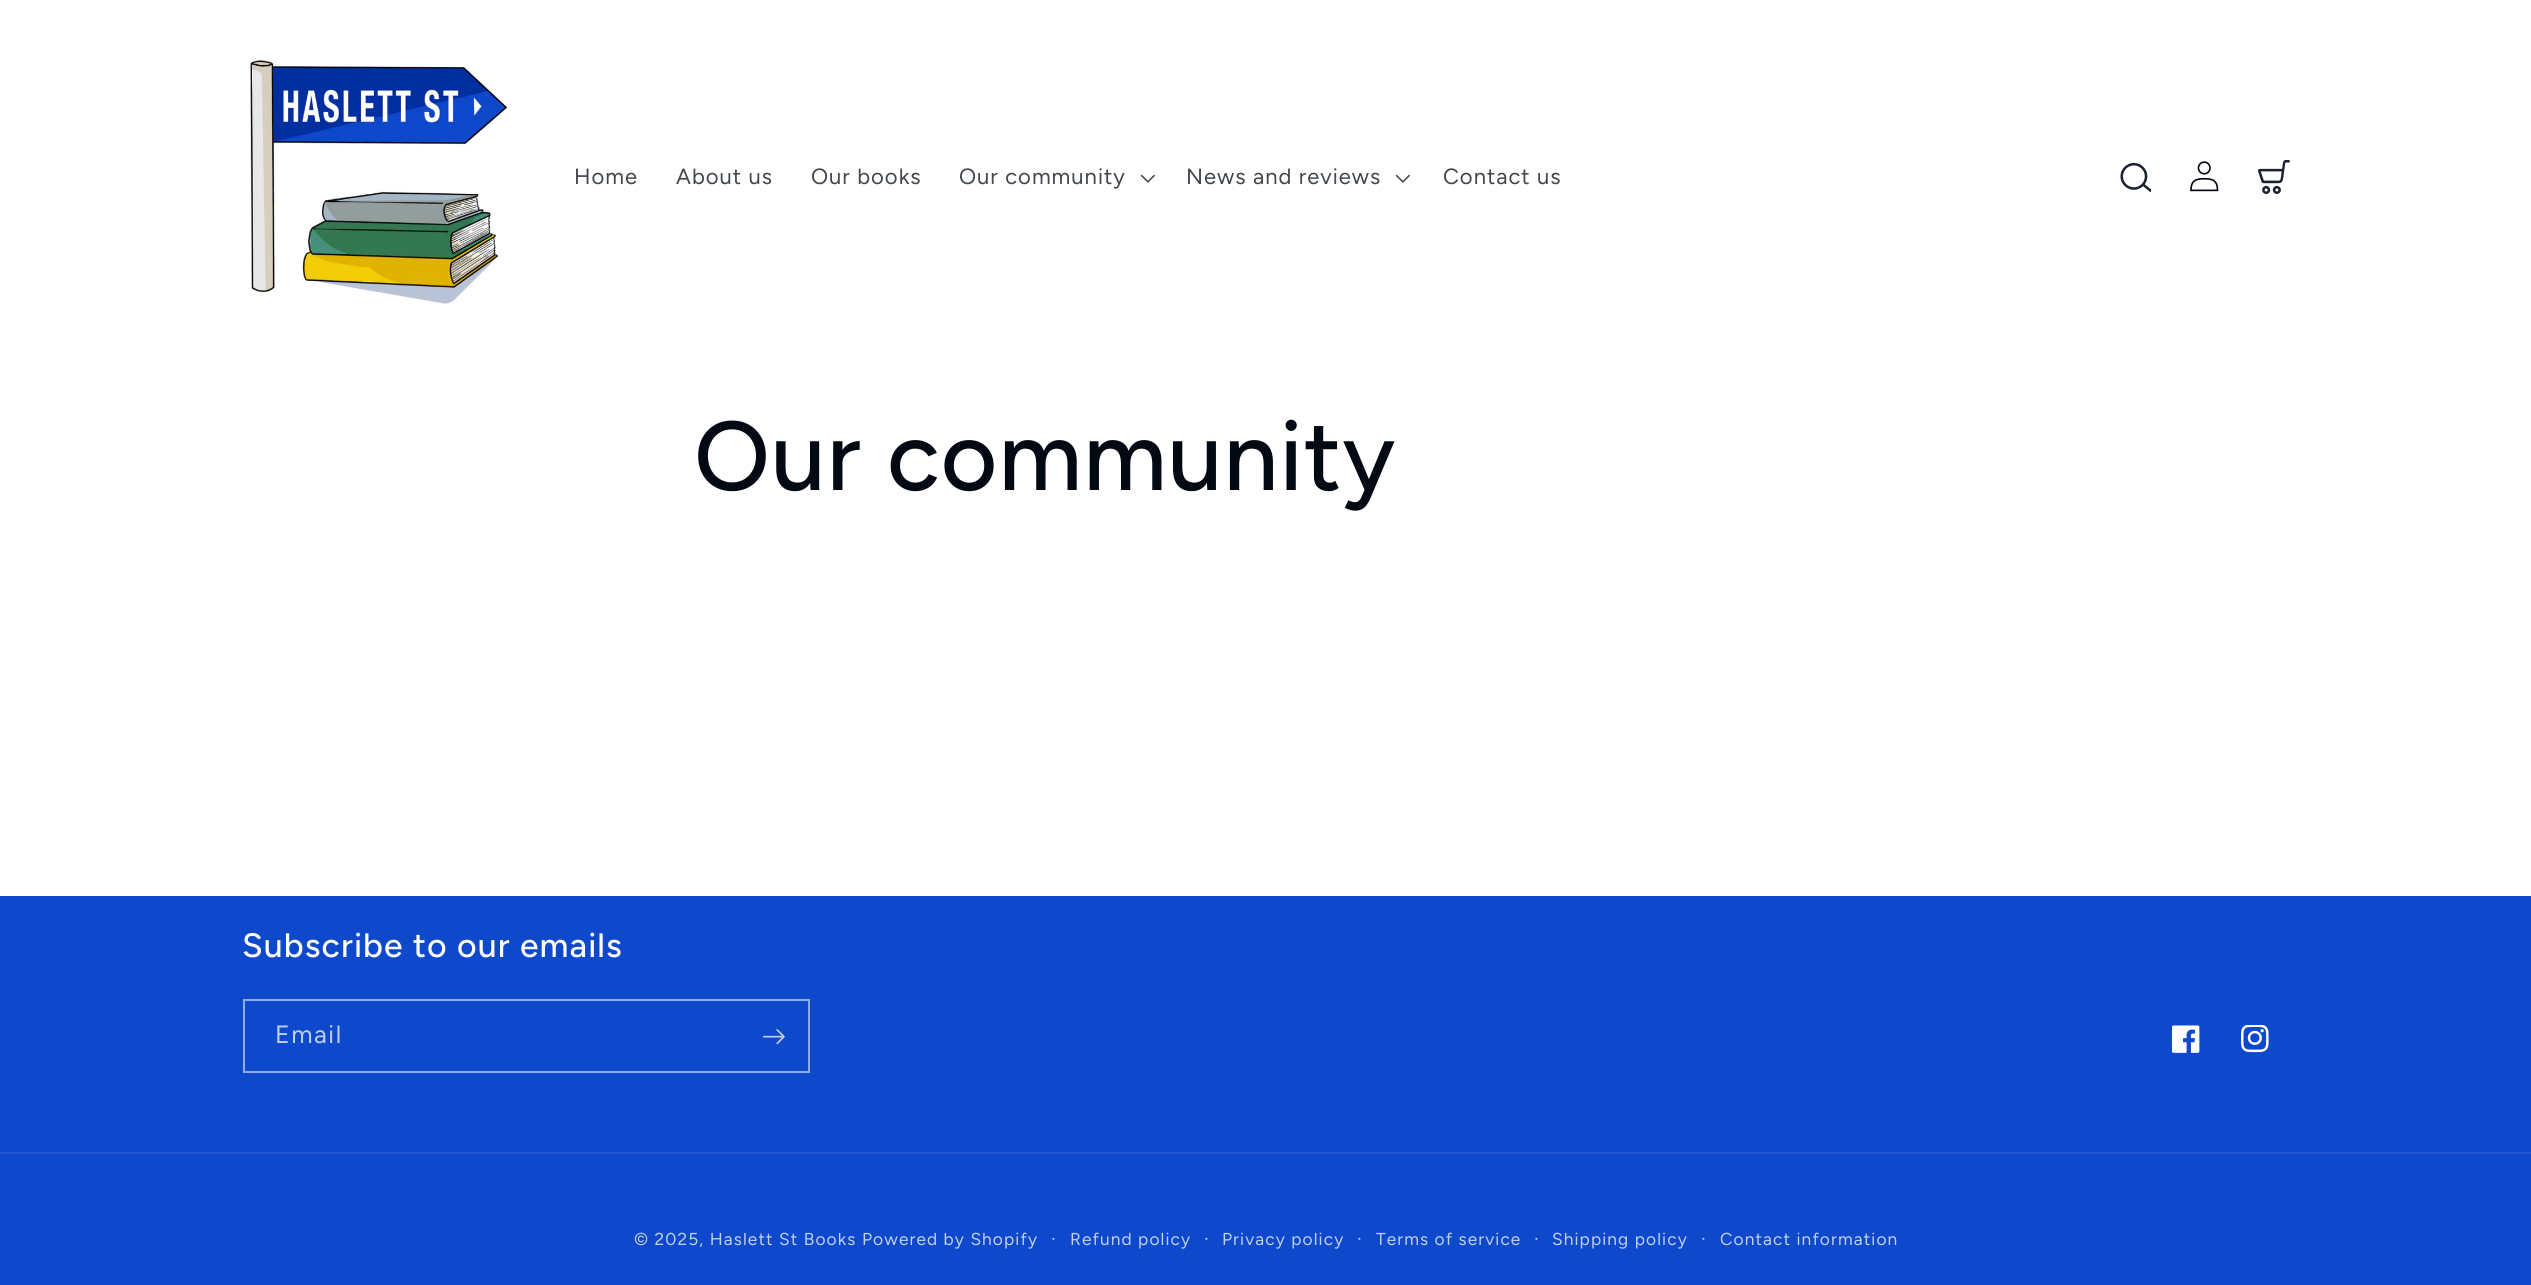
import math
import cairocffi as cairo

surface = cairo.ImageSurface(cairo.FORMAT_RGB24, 2531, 1285)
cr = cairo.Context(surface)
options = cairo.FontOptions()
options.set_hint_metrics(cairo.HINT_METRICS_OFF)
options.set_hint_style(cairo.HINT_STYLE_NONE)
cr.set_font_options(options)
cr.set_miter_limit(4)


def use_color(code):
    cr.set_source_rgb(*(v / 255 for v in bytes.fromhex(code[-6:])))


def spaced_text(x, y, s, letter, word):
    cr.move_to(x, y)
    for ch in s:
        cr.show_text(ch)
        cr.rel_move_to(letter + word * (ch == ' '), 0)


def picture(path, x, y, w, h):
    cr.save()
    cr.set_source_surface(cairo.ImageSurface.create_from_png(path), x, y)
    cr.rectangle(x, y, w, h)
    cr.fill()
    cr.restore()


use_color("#ffffff")
cr.paint()
picture("img1.png", 250, 59, 258, 245)
cr.select_font_face("Figtree")
cr.set_font_size(22)
use_color("#41474d")
spaced_text(574, 184, "Home", 1, 0)
spaced_text(676, 184, "About us", 1, 0)
spaced_text(811, 184, "Our books", 1, 0)
spaced_text(959, 184, "Our community", 1, 0)
picture("img2.png", 1140, 174, 15, 9)
spaced_text(1186, 184, "News and reviews", 1, 0)
picture("img2.png", 1395, 174, 15, 9)
spaced_text(1443, 184, "Contact us", 1, 0)
picture("img3.png", 2120, 162, 31, 30)
picture("img4.png", 2190, 161, 29, 31)
picture("img5.png", 2258, 160, 32, 34)
cr.select_font_face("Figtree Medium")
cr.set_font_size(97.5)
use_color("#020912")
spaced_text(694, 490, "Our community", 1.1, 0)
use_color("#0e48cb")
cr.rectangle(0, 896, 2531, 389)
cr.fill()
cr.set_font_size(33.75)
use_color("#fcfcfc")
spaced_text(242, 957, "Subscribe to our emails", 1.1, 0)
cr.rectangle(244, 1000, 565, 72)
use_color("#91abe6")
cr.stroke()
cr.select_font_face("Figtree")
cr.set_font_size(25)
use_color("#c1cff0")
spaced_text(275, 1043, "Email", 1.5, 0)
picture("img6.png", 762, 1029, 23, 16)
picture("img7.png", 2172, 1025, 28, 28)
picture("img8.png", 2241, 1025, 28, 28)
use_color("#2156cf")
cr.rectangle(0, 1152, 2531, 2)
cr.fill()
cr.set_font_size(17.3)
use_color("#c1cff0")
spaced_text(634, 1245, "© 2025, Haslett St Books", 1.1, 0)
spaced_text(862, 1245, "Powered by Shopify", 1.1, 0)
cr.set_font_size(19)
spaced_text(1051, 1245, "·", 1.1, 0)
cr.set_font_size(17.3)
spaced_text(1070, 1245, "Refund policy", 1.1, 0)
cr.set_font_size(19)
spaced_text(1204, 1245, "·", 1.1, 0)
cr.set_font_size(17.3)
spaced_text(1222, 1245, "Privacy policy", 1.1, 0)
cr.set_font_size(19)
spaced_text(1357, 1245, "·", 1.1, 0)
cr.set_font_size(17.3)
spaced_text(1376, 1245, "Terms of service", 1.1, 0)
cr.set_font_size(19)
spaced_text(1534, 1245, "·", 1.1, 0)
cr.set_font_size(17.3)
spaced_text(1552, 1245, "Shipping policy", 1.1, 0)
cr.set_font_size(19)
spaced_text(1701, 1245, "·", 1.1, 0)
cr.set_font_size(17.3)
spaced_text(1720, 1245, "Contact information", 1.1, 0)
surface.write_to_png("result.png")
